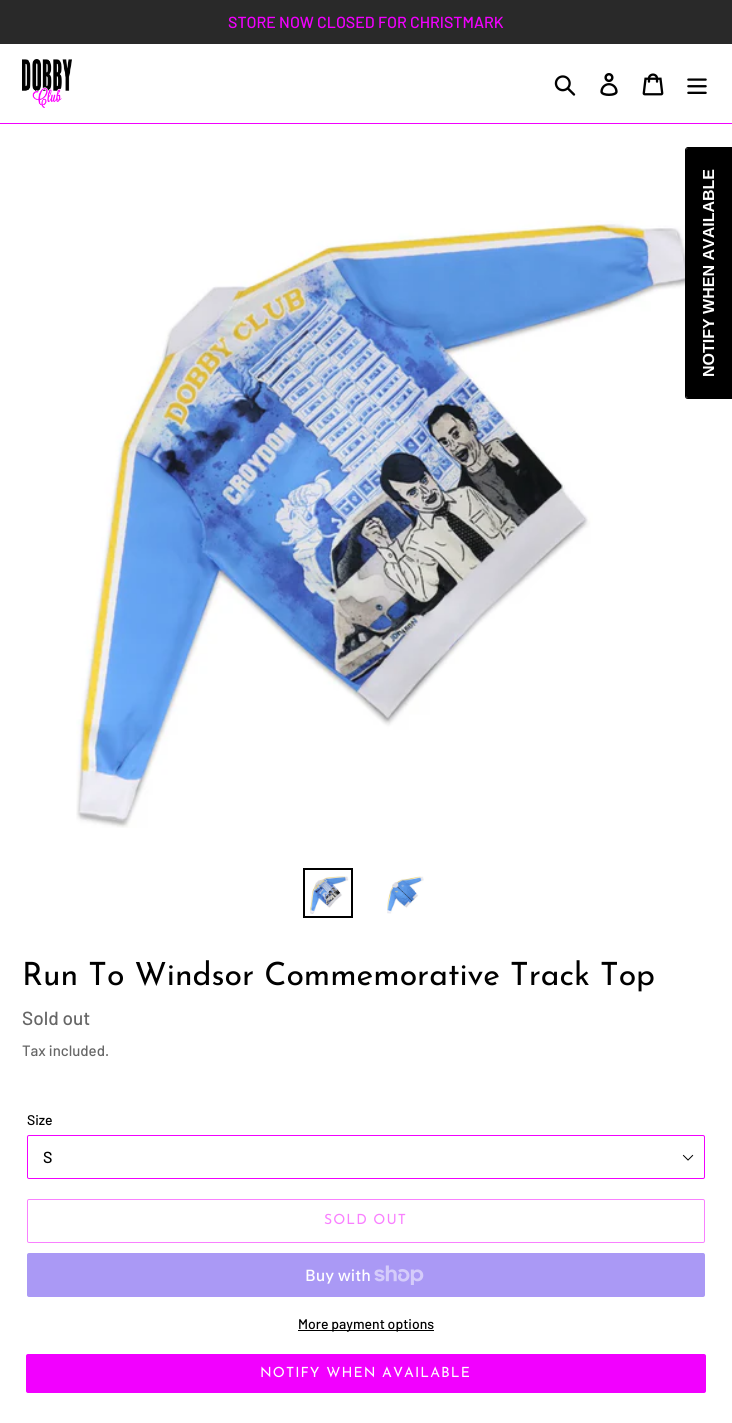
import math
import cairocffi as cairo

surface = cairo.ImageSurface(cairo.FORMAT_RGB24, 732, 1423)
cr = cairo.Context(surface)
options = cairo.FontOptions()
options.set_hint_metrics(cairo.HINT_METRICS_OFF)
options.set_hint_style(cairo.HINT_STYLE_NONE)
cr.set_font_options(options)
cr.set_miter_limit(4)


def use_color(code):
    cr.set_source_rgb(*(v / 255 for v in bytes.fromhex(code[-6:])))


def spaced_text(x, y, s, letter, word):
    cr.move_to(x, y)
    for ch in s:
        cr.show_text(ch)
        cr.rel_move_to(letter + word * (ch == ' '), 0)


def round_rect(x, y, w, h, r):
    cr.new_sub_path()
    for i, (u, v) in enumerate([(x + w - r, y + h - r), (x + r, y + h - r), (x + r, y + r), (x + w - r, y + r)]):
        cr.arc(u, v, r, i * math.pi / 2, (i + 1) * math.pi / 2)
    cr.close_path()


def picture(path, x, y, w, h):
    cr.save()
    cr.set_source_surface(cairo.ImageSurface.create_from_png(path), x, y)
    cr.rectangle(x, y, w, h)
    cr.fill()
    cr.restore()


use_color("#ffffff")
cr.paint()
use_color("#292929")
cr.rectangle(0, 0, 732, 44)
cr.fill()
cr.select_font_face("Barlow Medium")
cr.set_font_size(16)
use_color("#f200ff")
cr.move_to(228, 28)
cr.show_text("STORE NOW CLOSED FOR CHRISTMARK")
cr.rectangle(0, 123, 732, 1)
cr.fill()
picture("img1.png", 22, 59, 50, 49)
picture("img2.png", 554, 75, 22, 21)
picture("img3.png", 600, 73, 18, 23)
picture("img4.png", 642, 73, 22, 23)
picture("img5.png", 687, 78, 20, 16)
picture("img6.png", 76, 220, 616, 608)
use_color("#000000")
cr.new_path()
cr.move_to(686, 396)
cr.line_to(686, 150)
cr.curve_to(686, 149, 687, 148, 688, 148)
cr.line_to(732, 148)
cr.line_to(732, 398)
cr.line_to(688, 398)
cr.curve_to(687, 398, 686, 397, 686, 396)
cr.close_path()
cr.fill()
cr.set_fill_rule(cairo.FILL_RULE_EVEN_ODD)
cr.new_path()
cr.move_to(685, 396)
cr.line_to(685, 150)
cr.curve_to(685, 149, 686, 147, 688, 147)
cr.line_to(732, 147)
cr.line_to(732, 399)
cr.line_to(688, 399)
cr.curve_to(686, 399, 685, 398, 685, 396)
cr.close_path()
cr.move_to(686, 396)
cr.line_to(686, 150)
cr.curve_to(686, 149, 687, 148, 688, 148)
cr.line_to(732, 148)
cr.line_to(732, 398)
cr.line_to(688, 398)
cr.curve_to(687, 398, 686, 397, 686, 396)
cr.close_path()
cr.fill()
cr.select_font_face("Liberation Sans", cairo.FONT_SLANT_NORMAL, cairo.FONT_WEIGHT_BOLD)
use_color("#ffffff")
cr.save()
cr.translate(714, 377)
cr.rotate(-90 * math.pi / 180)
cr.move_to(0, 0)
cr.show_text("NOTIFY WHEN AVAILABLE")
cr.restore()
cr.rectangle(304, 869, 48, 48)
use_color("#000000")
cr.stroke()
picture("img7.png", 310, 876, 39, 38)
picture("img8.png", 387, 876, 37, 38)
cr.select_font_face("Josefin Sans")
cr.set_font_size(32)
cr.move_to(22, 985)
cr.show_text("Run To Windsor Commemorative Track Top")
cr.select_font_face("Barlow Medium")
cr.set_font_size(19)
use_color("#666666")
cr.move_to(22, 1025)
cr.show_text("Sold out")
cr.set_font_size(15)
cr.move_to(22, 1056)
cr.show_text("Tax included.")
cr.set_font_size(14)
use_color("#000000")
cr.move_to(27, 1125)
cr.show_text("Size")
picture("img9.png", 682, 1154, 12, 7)
round_rect(27.5, 1135.5, 677, 43, 1.5)
use_color("#f200ff")
cr.set_line_width(1)
cr.stroke()
cr.set_font_size(16)
use_color("#000000")
cr.move_to(43, 1163)
cr.show_text("S")
round_rect(27.5, 1199.5, 677, 43, 1.5)
use_color("#f980ff")
cr.stroke()
cr.select_font_face("Josefin Sans")
cr.set_font_size(14)
spaced_text(324, 1224, "SOLD OUT", 1.1, 0)
use_color("#aa99f5")
round_rect(27, 1253, 678, 44, 2)
cr.fill()
cr.select_font_face("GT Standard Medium")
cr.set_font_size(16)
use_color("#ffffff")
cr.move_to(305, 1281)
cr.show_text("Buy with")
picture("img10.png", 374, 1265, 50, 20)
use_color("#000000")
cr.rectangle(298, 1330, 136, 1)
cr.fill()
cr.select_font_face("Barlow Medium")
cr.set_font_size(14)
cr.move_to(298, 1329)
cr.show_text("More payment options")
use_color("#f200ff")
round_rect(26, 1354, 680, 39, 2)
cr.fill()
cr.select_font_face("Josefin Sans")
use_color("#ffffff")
spaced_text(260, 1377, "NOTIFY WHEN AVAILABLE", 1.1, 0)
surface.write_to_png("result.png")
